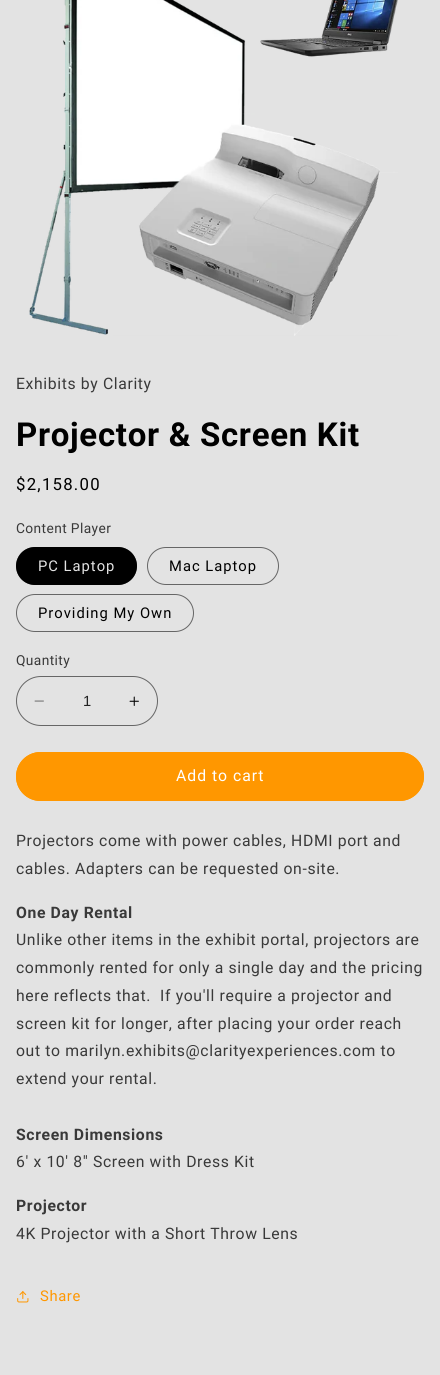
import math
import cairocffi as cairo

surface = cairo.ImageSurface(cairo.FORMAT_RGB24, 440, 1375)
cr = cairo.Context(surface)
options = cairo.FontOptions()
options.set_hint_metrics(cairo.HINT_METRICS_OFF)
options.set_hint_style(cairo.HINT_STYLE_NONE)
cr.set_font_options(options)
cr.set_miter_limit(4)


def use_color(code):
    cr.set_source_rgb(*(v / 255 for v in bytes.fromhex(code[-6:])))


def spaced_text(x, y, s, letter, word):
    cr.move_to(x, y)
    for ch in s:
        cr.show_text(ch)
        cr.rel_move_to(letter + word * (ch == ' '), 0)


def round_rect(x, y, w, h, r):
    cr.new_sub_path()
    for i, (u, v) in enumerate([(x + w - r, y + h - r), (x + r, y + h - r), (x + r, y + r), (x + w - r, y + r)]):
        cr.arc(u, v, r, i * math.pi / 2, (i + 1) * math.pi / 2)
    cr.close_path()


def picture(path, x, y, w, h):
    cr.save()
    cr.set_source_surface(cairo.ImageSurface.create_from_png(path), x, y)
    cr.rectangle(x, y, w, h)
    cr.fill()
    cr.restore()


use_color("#e3e3e3")
cr.paint()
picture("img1.png", 29, 0, 369, 336)
cr.select_font_face("Roboto")
cr.set_font_size(15.75)
use_color("#393939")
spaced_text(16, 389, "Exhibits by Clarity", 0.63, 0)
cr.select_font_face("Roboto", cairo.FONT_SLANT_NORMAL, cairo.FONT_WEIGHT_BOLD)
cr.set_font_size(33)
use_color("#000000")
spaced_text(16, 446, "Projector & Screen Kit", 0.7, 0)
cr.select_font_face("Roboto")
cr.set_font_size(16.75)
spaced_text(16, 490, "$2,158.00", 1.25, 0)
cr.set_font_size(13.75)
use_color("#393939")
spaced_text(16, 533, "Content Player", 0.4, 0)
use_color("#000000")
round_rect(16, 547, 121, 38, 19)
cr.fill()
round_rect(16.5, 547.5, 120, 37, 18.5)
cr.set_source_rgba(0, 0, 0, 0.55)
cr.set_line_width(1)
cr.stroke()
cr.set_font_size(14.75)
use_color("#e3e3e3")
spaced_text(38, 571, "PC Laptop", 1, 0)
round_rect(147.5, 547.5, 131, 37, 18.5)
use_color("#666666")
cr.stroke()
use_color("#000000")
spaced_text(169, 571, "Mac Laptop", 1, 0)
round_rect(16.5, 594.5, 177, 37, 18.5)
use_color("#666666")
cr.stroke()
use_color("#000000")
spaced_text(38, 618, "Providing My Own", 1, 0)
cr.set_font_size(13.75)
use_color("#393939")
spaced_text(16, 665, "Quantity", 0.4, 0)
picture("img2.png", 34, 700, 10, 2)
picture("img3.png", 129, 696, 10, 10)
round_rect(16.5, 676.5, 141, 49, 24.5)
use_color("#666666")
cr.stroke()
cr.select_font_face("Liberation Sans")
cr.set_font_size(14.75)
use_color("#222222")
cr.move_to(83, 706)
cr.show_text("1")
use_color("#ff9700")
round_rect(16, 752, 408, 49, 24.5)
cr.fill()
round_rect(16.5, 752.5, 407, 48, 24)
cr.stroke()
cr.select_font_face("Roboto")
cr.set_font_size(15.75)
use_color("#ffffff")
spaced_text(176, 781, "Add to cart", 1, 0)
use_color("#393939")
spaced_text(16, 846, "Projectors come with power cables, HDMI port and", 0.63, 0)
spaced_text(16, 874, "cables. Adapters can be requested on-site.", 0.63, 0)
cr.select_font_face("Roboto", cairo.FONT_SLANT_NORMAL, cairo.FONT_WEIGHT_BOLD)
spaced_text(16, 918, "One Day Rental", 0.63, 0)
cr.select_font_face("Roboto")
spaced_text(16, 945, "Unlike other items in the exhibit portal, projectors are", 0.63, 0)
spaced_text(16, 973, "commonly rented for only a single day and the pricing", 0.63, 0)
spaced_text(16, 1001, "here reflects that.  If you'll require a projector and", 0.63, 0)
spaced_text(16, 1029, "screen kit for longer, after placing your order reach", 0.63, 0)
spaced_text(16, 1056, "out to marilyn.exhibits@clarityexperiences.com to", 0.63, 0)
spaced_text(16, 1084, "extend your rental.", 0.63, 0)
cr.select_font_face("Roboto", cairo.FONT_SLANT_NORMAL, cairo.FONT_WEIGHT_BOLD)
spaced_text(16, 1140, "Screen Dimensions", 0.63, 0)
cr.select_font_face("Roboto")
spaced_text(16, 1167, "6' x 10' 8\" Screen with Dress Kit", 0.63, 0)
cr.select_font_face("Roboto", cairo.FONT_SLANT_NORMAL, cairo.FONT_WEIGHT_BOLD)
spaced_text(16, 1211, "Projector", 0.63, 0)
cr.select_font_face("Roboto")
spaced_text(16, 1239, "4K Projector with a Short Throw Lens", 0.63, 0)
picture("img4.png", 17, 1291, 12, 12)
cr.set_font_size(14.75)
use_color("#ff9700")
spaced_text(40, 1301, "Share", 0.63, 0)
surface.write_to_png("result.png")
